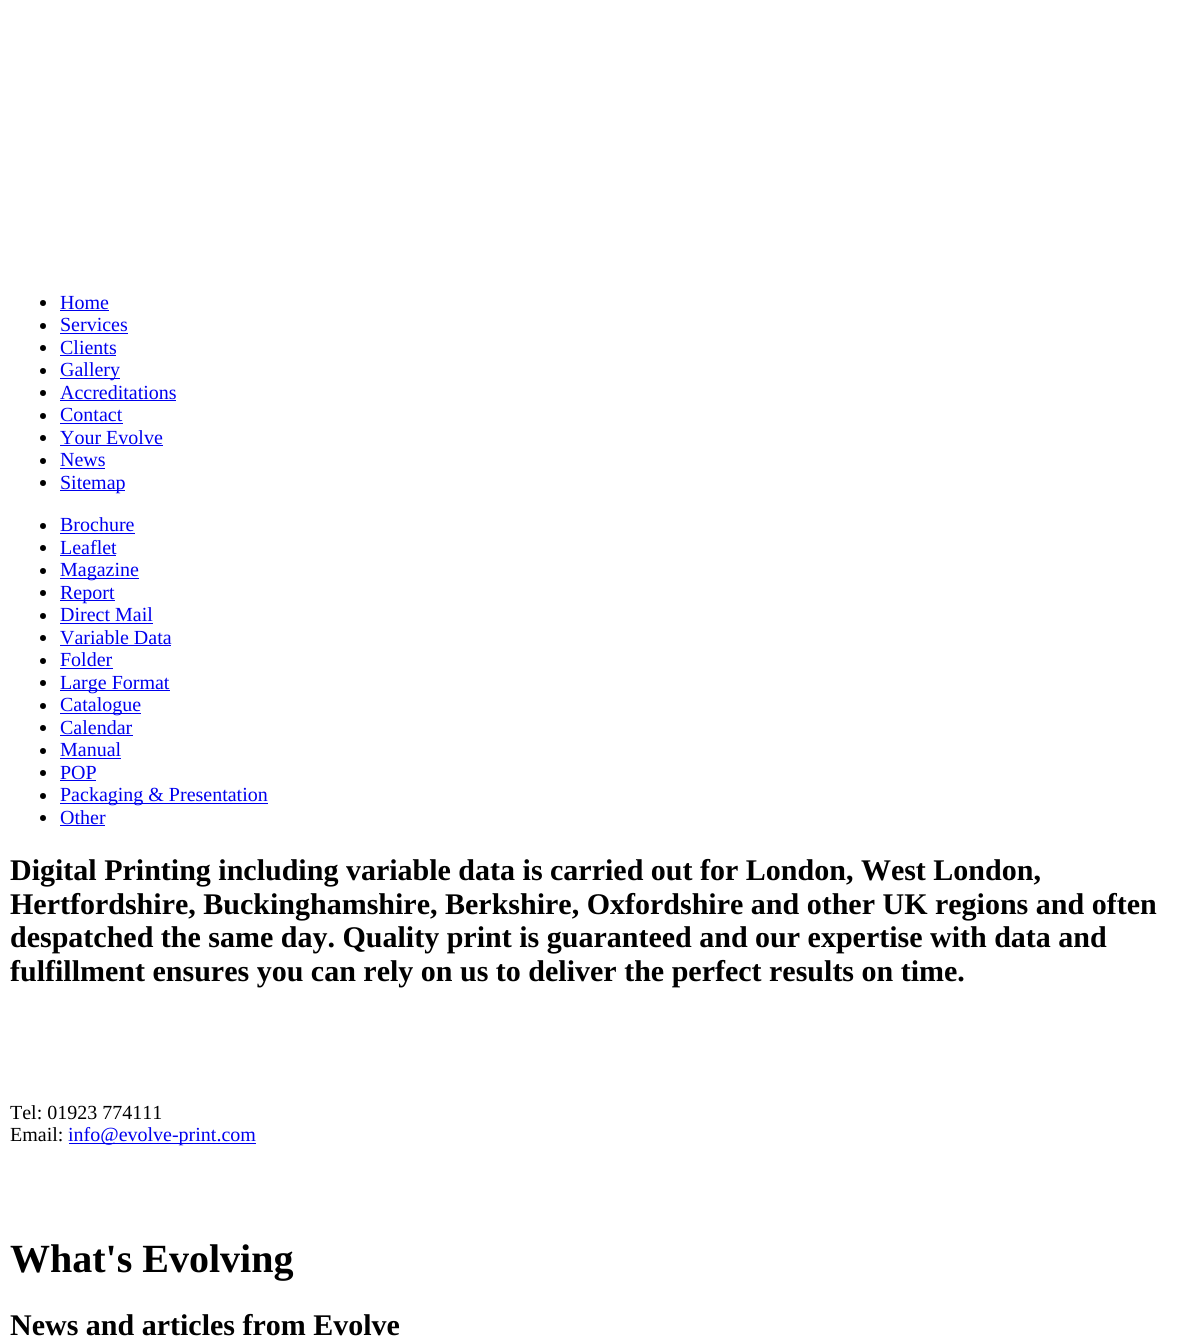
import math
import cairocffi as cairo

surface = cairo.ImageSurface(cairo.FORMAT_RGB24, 1201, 1344)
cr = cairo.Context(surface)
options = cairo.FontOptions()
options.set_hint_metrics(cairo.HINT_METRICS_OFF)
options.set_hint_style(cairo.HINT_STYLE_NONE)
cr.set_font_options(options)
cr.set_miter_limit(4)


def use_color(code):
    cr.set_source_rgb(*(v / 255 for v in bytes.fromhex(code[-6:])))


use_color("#ffffff")
cr.paint()
use_color("#000000")
cr.arc(43, 303, 3, 0, 2 * math.pi)
cr.fill()
cr.select_font_face("Liberation Serif")
cr.set_font_size(20)
use_color("#0000ee")
cr.move_to(60, 309)
cr.show_text("Home")
cr.rectangle(60, 310, 49, 1)
cr.fill()
use_color("#000000")
cr.arc(43, 326, 3, 0, 2 * math.pi)
cr.fill()
use_color("#0000ee")
cr.move_to(60, 331)
cr.show_text("Services")
cr.rectangle(60, 333, 68, 1)
cr.fill()
use_color("#000000")
cr.arc(43, 348, 3, 0, 2 * math.pi)
cr.fill()
use_color("#0000ee")
cr.move_to(60, 354)
cr.show_text("Clients")
cr.rectangle(60, 355, 56, 1)
cr.fill()
use_color("#000000")
cr.arc(43, 371, 3, 0, 2 * math.pi)
cr.fill()
use_color("#0000ee")
cr.rectangle(60, 378, 60, 1)
cr.fill()
cr.move_to(60, 376)
cr.show_text("Gallery")
use_color("#000000")
cr.new_path()
cr.arc(43, 393, 3, 0, 2 * math.pi)
cr.fill()
use_color("#0000ee")
cr.move_to(60, 399)
cr.show_text("Accreditations")
cr.rectangle(60, 400, 116, 1)
cr.fill()
use_color("#000000")
cr.arc(43, 416, 3, 0, 2 * math.pi)
cr.fill()
use_color("#0000ee")
cr.move_to(60, 421)
cr.show_text("Contact")
cr.rectangle(60, 423, 63, 1)
cr.fill()
use_color("#000000")
cr.arc(43, 438, 3, 0, 2 * math.pi)
cr.fill()
use_color("#0000ee")
cr.move_to(60, 444)
cr.show_text("Your Evolve")
cr.rectangle(60, 445, 103, 1)
cr.fill()
use_color("#000000")
cr.arc(43, 461, 3, 0, 2 * math.pi)
cr.fill()
use_color("#0000ee")
cr.move_to(60, 466)
cr.show_text("News")
cr.rectangle(60, 468, 45, 1)
cr.fill()
use_color("#000000")
cr.arc(43, 483, 3, 0, 2 * math.pi)
cr.fill()
use_color("#0000ee")
cr.rectangle(60, 490, 65, 1)
cr.fill()
cr.move_to(60, 489)
cr.show_text("Sitemap")
use_color("#000000")
cr.new_path()
cr.arc(43, 526, 3, 0, 2 * math.pi)
cr.fill()
use_color("#0000ee")
cr.move_to(60, 531)
cr.show_text("Brochure")
cr.rectangle(60, 533, 75, 1)
cr.fill()
use_color("#000000")
cr.arc(43, 548, 3, 0, 2 * math.pi)
cr.fill()
use_color("#0000ee")
cr.move_to(60, 554)
cr.show_text("Leaflet")
cr.rectangle(60, 555, 56, 1)
cr.fill()
use_color("#000000")
cr.arc(43, 571, 3, 0, 2 * math.pi)
cr.fill()
use_color("#0000ee")
cr.rectangle(60, 578, 79, 1)
cr.fill()
cr.move_to(60, 576)
cr.show_text("Magazine")
use_color("#000000")
cr.new_path()
cr.arc(43, 593, 3, 0, 2 * math.pi)
cr.fill()
use_color("#0000ee")
cr.rectangle(60, 600, 55, 1)
cr.fill()
cr.move_to(60, 599)
cr.show_text("Report")
use_color("#000000")
cr.new_path()
cr.arc(43, 616, 3, 0, 2 * math.pi)
cr.fill()
use_color("#0000ee")
cr.move_to(60, 621)
cr.show_text("Direct Mail")
cr.rectangle(60, 623, 93, 1)
cr.fill()
use_color("#000000")
cr.arc(43, 638, 3, 0, 2 * math.pi)
cr.fill()
use_color("#0000ee")
cr.move_to(60, 644)
cr.show_text("Variable Data")
cr.rectangle(60, 645, 111, 1)
cr.fill()
use_color("#000000")
cr.arc(43, 661, 3, 0, 2 * math.pi)
cr.fill()
use_color("#0000ee")
cr.move_to(60, 666)
cr.show_text("Folder")
cr.rectangle(60, 668, 53, 1)
cr.fill()
use_color("#000000")
cr.arc(43, 683, 3, 0, 2 * math.pi)
cr.fill()
use_color("#0000ee")
cr.rectangle(60, 690, 110, 1)
cr.fill()
cr.move_to(60, 689)
cr.show_text("Large Format")
use_color("#000000")
cr.new_path()
cr.arc(43, 706, 3, 0, 2 * math.pi)
cr.fill()
use_color("#0000ee")
cr.rectangle(60, 713, 81, 1)
cr.fill()
cr.move_to(60, 711)
cr.show_text("Catalogue")
use_color("#000000")
cr.new_path()
cr.arc(43, 728, 3, 0, 2 * math.pi)
cr.fill()
use_color("#0000ee")
cr.move_to(60, 734)
cr.show_text("Calendar")
cr.rectangle(60, 735, 73, 1)
cr.fill()
use_color("#000000")
cr.arc(43, 751, 3, 0, 2 * math.pi)
cr.fill()
use_color("#0000ee")
cr.move_to(60, 756)
cr.show_text("Manual")
cr.rectangle(60, 758, 61, 1)
cr.fill()
use_color("#000000")
cr.arc(43, 773, 3, 0, 2 * math.pi)
cr.fill()
use_color("#0000ee")
cr.move_to(60, 779)
cr.show_text("POP")
cr.rectangle(60, 780, 36, 1)
cr.fill()
use_color("#000000")
cr.arc(43, 796, 3, 0, 2 * math.pi)
cr.fill()
use_color("#0000ee")
cr.rectangle(60, 803, 208, 1)
cr.fill()
cr.move_to(60, 801)
cr.show_text("Packaging & Presentation")
use_color("#000000")
cr.new_path()
cr.arc(43, 818, 3, 0, 2 * math.pi)
cr.fill()
use_color("#0000ee")
cr.move_to(60, 824)
cr.show_text("Other")
cr.rectangle(60, 825, 45, 1)
cr.fill()
cr.select_font_face("Liberation Serif", cairo.FONT_SLANT_NORMAL, cairo.FONT_WEIGHT_BOLD)
cr.set_font_size(30)
use_color("#000000")
cr.move_to(10, 880)
cr.show_text("Digital Printing including variable data is carried out for London, West London,")
cr.move_to(10, 914)
cr.show_text("Hertfordshire, Buckinghamshire, Berkshire, Oxfordshire and other UK regions and often")
cr.move_to(10, 947)
cr.show_text("despatched the same day. Quality print is guaranteed and our expertise with data and")
cr.move_to(10, 981)
cr.show_text("fulfillment ensures you can rely on us to deliver the perfect results on time.")
cr.select_font_face("Liberation Serif")
cr.set_font_size(20)
cr.move_to(10, 1119)
cr.show_text("Tel: 01923 774111")
cr.move_to(10, 1141)
cr.show_text("Email:")
use_color("#0000ee")
cr.rectangle(69, 1143, 187, 1)
cr.fill()
cr.move_to(68, 1141)
cr.show_text("info@evolve-print.com")
cr.select_font_face("Liberation Serif", cairo.FONT_SLANT_NORMAL, cairo.FONT_WEIGHT_BOLD)
cr.set_font_size(40)
use_color("#000000")
cr.move_to(10, 1272)
cr.show_text("What's Evolving")
cr.set_font_size(30)
cr.move_to(10, 1335)
cr.show_text("News and articles from Evolve")
surface.write_to_png("result.png")
